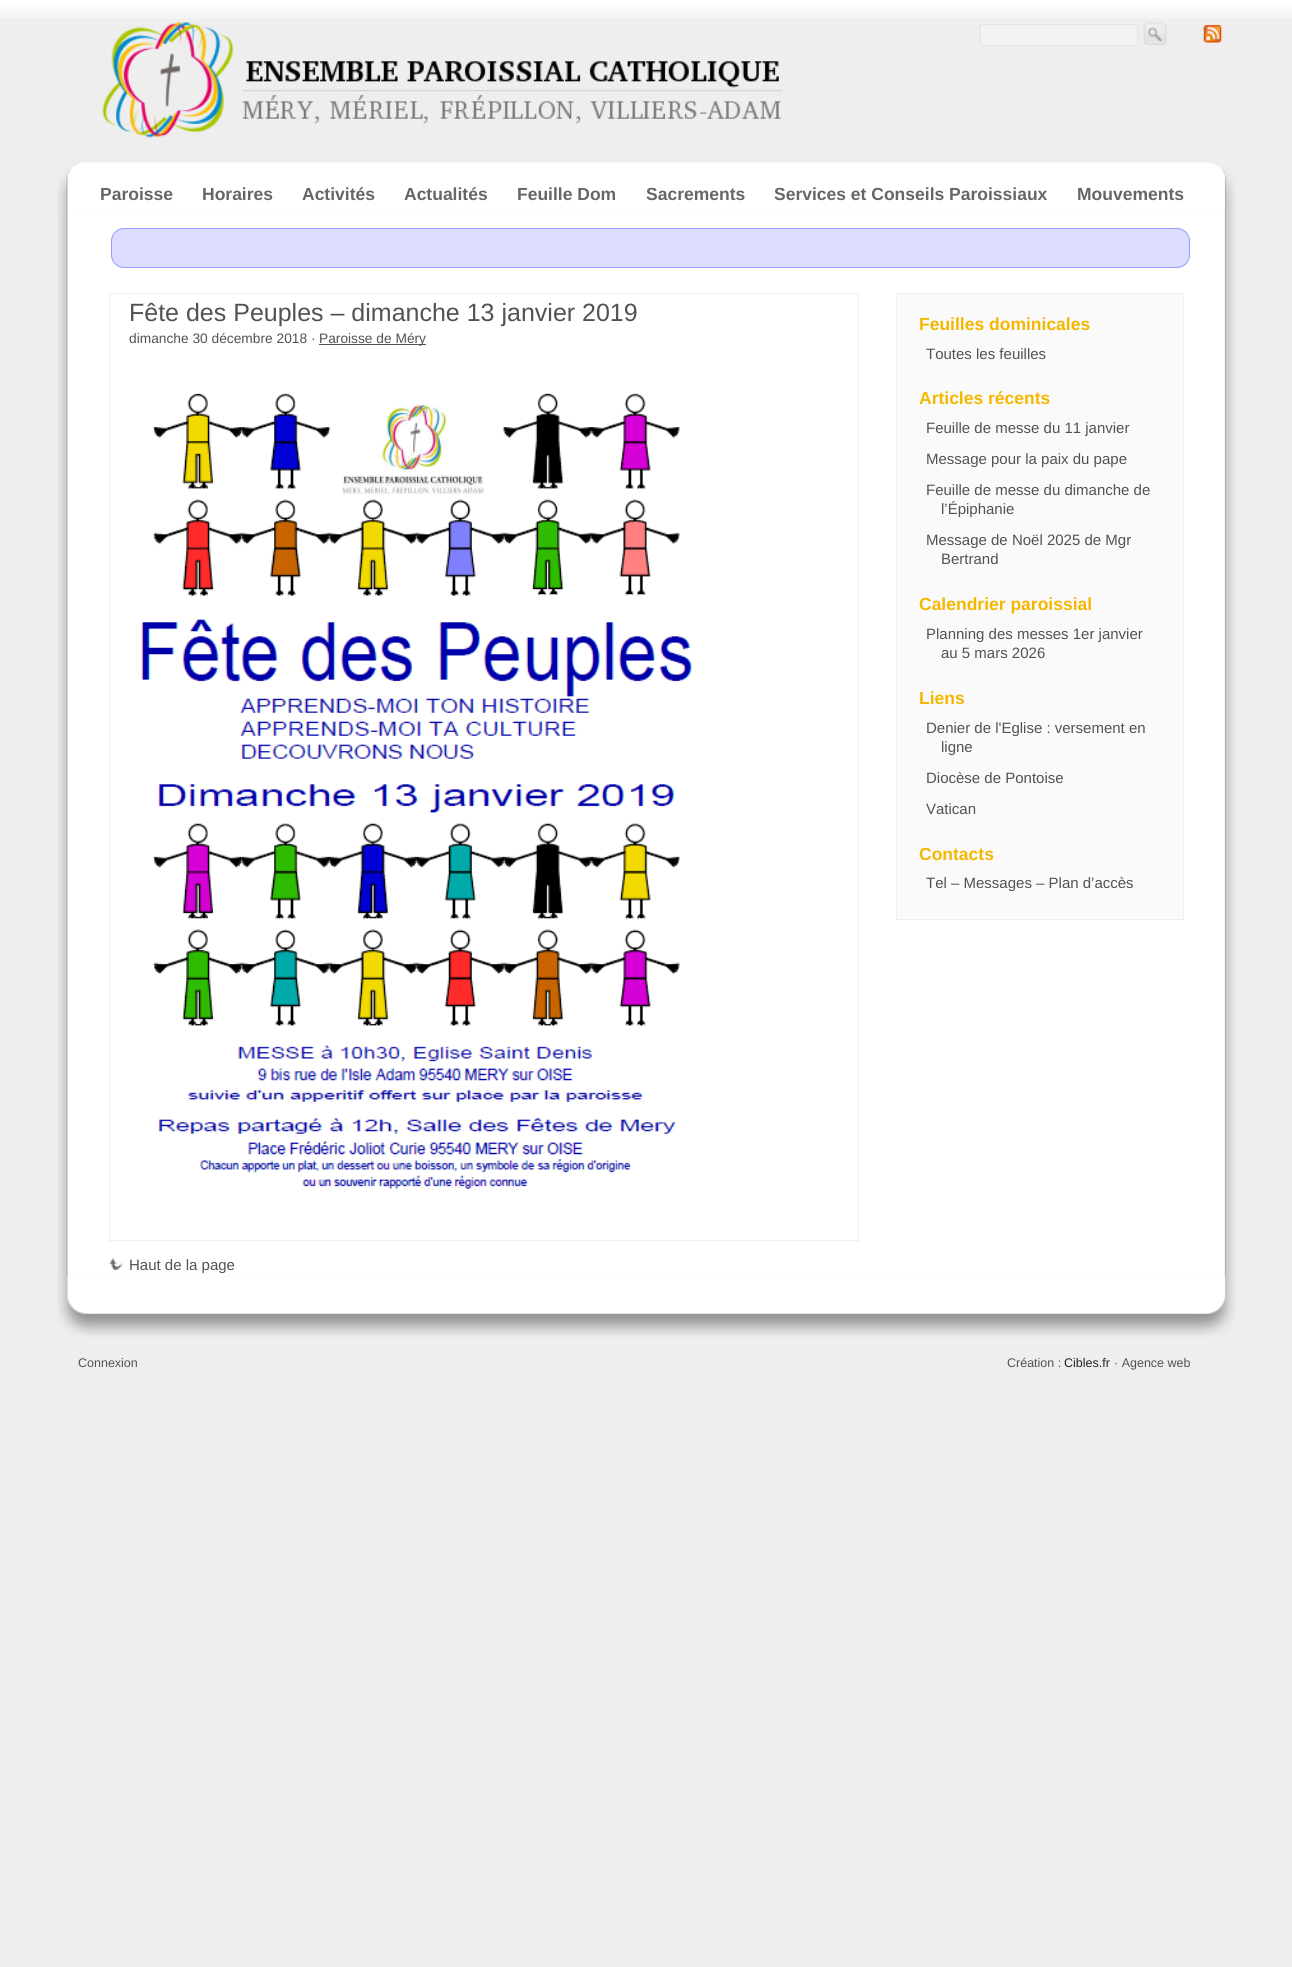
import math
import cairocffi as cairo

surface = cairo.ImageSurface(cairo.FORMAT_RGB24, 1292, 1967)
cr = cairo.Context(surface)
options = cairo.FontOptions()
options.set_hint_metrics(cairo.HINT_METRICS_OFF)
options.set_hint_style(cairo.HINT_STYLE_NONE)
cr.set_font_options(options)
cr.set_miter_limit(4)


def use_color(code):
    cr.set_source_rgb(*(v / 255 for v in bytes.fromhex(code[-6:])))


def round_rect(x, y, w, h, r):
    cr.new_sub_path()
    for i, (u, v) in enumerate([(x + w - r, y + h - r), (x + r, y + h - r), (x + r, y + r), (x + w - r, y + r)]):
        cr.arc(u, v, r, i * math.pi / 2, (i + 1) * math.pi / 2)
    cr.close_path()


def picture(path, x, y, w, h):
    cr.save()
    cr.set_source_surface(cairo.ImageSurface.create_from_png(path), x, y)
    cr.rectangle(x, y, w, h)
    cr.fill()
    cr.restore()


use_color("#eeeeee")
cr.paint()
picture("img1.png", 0, 0, 1292, 19)
picture("img2.png", 102, 22, 681, 116)
use_color("#f3f3f3")
cr.rectangle(980.5, 24.5, 157, 21)
cr.fill_preserve()
use_color("#e3e3e3")
cr.set_line_width(1)
cr.stroke()
picture("img3.png", 1143, 22, 24, 23)
picture("img4.png", 1203, 25, 19, 18)
picture("img5.png", 57, 162, 1179, 47)
cr.select_font_face("Liberation Sans", cairo.FONT_SLANT_NORMAL, cairo.FONT_WEIGHT_BOLD)
cr.set_font_size(17.5)
use_color("#666666")
cr.move_to(100, 200)
cr.show_text("Paroisse")
cr.move_to(202, 200)
cr.show_text("Horaires")
cr.move_to(302, 200)
cr.show_text("Activités")
cr.move_to(404, 200)
cr.show_text("Actualités")
cr.move_to(517, 200)
cr.show_text("Feuille Dom")
cr.move_to(646, 200)
cr.show_text("Sacrements")
cr.move_to(774, 200)
cr.show_text("Services et Conseils Paroissiaux")
cr.move_to(1077, 200)
cr.show_text("Mouvements")
picture("img6.png", 57, 208, 1179, 1069)
use_color("#ddddff")
round_rect(111.5, 228.5, 1078, 39, 12.5)
cr.fill_preserve()
use_color("#9999ff")
cr.stroke()
cr.rectangle(109.5, 293.5, 749, 947)
use_color("#eeeeee")
cr.stroke()
cr.select_font_face("Liberation Sans")
cr.set_font_size(25)
use_color("#525252")
cr.move_to(129, 321)
cr.show_text("Fête des Peuples – dimanche 13 janvier 2019")
cr.set_font_size(13.75)
cr.move_to(129, 343)
cr.show_text("dimanche 30 décembre 2018 ·")
cr.rectangle(319, 344, 107, 1)
cr.fill()
cr.move_to(319, 343)
cr.show_text("Paroisse de Méry")
picture("img7.png", 141, 393, 552, 796)
picture("img8.png", 108, 1257, 15, 13)
cr.set_font_size(15)
cr.move_to(129, 1270)
cr.show_text("Haut de la page")
use_color("#fafafa")
cr.rectangle(896.5, 293.5, 287, 626)
cr.fill_preserve()
use_color("#eeeeee")
cr.stroke()
cr.select_font_face("Liberation Sans", cairo.FONT_SLANT_NORMAL, cairo.FONT_WEIGHT_BOLD)
cr.set_font_size(17.5)
use_color("#f4b700")
cr.move_to(919, 330)
cr.show_text("Feuilles dominicales")
cr.select_font_face("Liberation Sans")
cr.set_font_size(15)
use_color("#525252")
cr.move_to(926, 359)
cr.show_text("Toutes les feuilles")
cr.select_font_face("Liberation Sans", cairo.FONT_SLANT_NORMAL, cairo.FONT_WEIGHT_BOLD)
cr.set_font_size(17.5)
use_color("#f4b700")
cr.move_to(919, 404)
cr.show_text("Articles récents")
cr.select_font_face("Liberation Sans")
cr.set_font_size(15)
use_color("#525252")
cr.move_to(926, 433)
cr.show_text("Feuille de messe du 11 janvier")
cr.move_to(926, 464)
cr.show_text("Message pour la paix du pape")
cr.move_to(926, 495)
cr.show_text("Feuille de messe du dimanche de")
cr.move_to(941, 514)
cr.show_text("l’Épiphanie")
cr.move_to(926, 545)
cr.show_text("Message de Noël 2025 de Mgr")
cr.move_to(941, 564)
cr.show_text("Bertrand")
cr.select_font_face("Liberation Sans", cairo.FONT_SLANT_NORMAL, cairo.FONT_WEIGHT_BOLD)
cr.set_font_size(17.5)
use_color("#f4b700")
cr.move_to(919, 610)
cr.show_text("Calendrier paroissial")
cr.select_font_face("Liberation Sans")
cr.set_font_size(15)
use_color("#525252")
cr.move_to(926, 639)
cr.show_text("Planning des messes 1er janvier")
cr.move_to(941, 658)
cr.show_text("au 5 mars 2026")
cr.select_font_face("Liberation Sans", cairo.FONT_SLANT_NORMAL, cairo.FONT_WEIGHT_BOLD)
cr.set_font_size(17.5)
use_color("#f4b700")
cr.move_to(919, 704)
cr.show_text("Liens")
cr.select_font_face("Liberation Sans")
cr.set_font_size(15)
use_color("#525252")
cr.move_to(926, 733)
cr.show_text("Denier de l'Eglise : versement en")
cr.move_to(941, 752)
cr.show_text("ligne")
cr.move_to(926, 783)
cr.show_text("Diocèse de Pontoise")
cr.move_to(926, 814)
cr.show_text("Vatican")
cr.select_font_face("Liberation Sans", cairo.FONT_SLANT_NORMAL, cairo.FONT_WEIGHT_BOLD)
cr.set_font_size(17.5)
use_color("#f4b700")
cr.move_to(919, 860)
cr.show_text("Contacts")
cr.select_font_face("Liberation Sans")
cr.set_font_size(15)
use_color("#525252")
cr.move_to(926, 888)
cr.show_text("Tel – Messages – Plan d’accès")
picture("img9.png", 57, 1276, 1179, 61)
cr.set_font_size(12.5)
cr.move_to(78, 1367)
cr.show_text("Connexion")
cr.move_to(1007, 1367)
cr.show_text("Création :")
use_color("#222222")
cr.move_to(1064, 1367)
cr.show_text("Cibles.fr")
use_color("#525252")
cr.move_to(1114, 1367)
cr.show_text("· Agence web")
surface.write_to_png("result.png")
